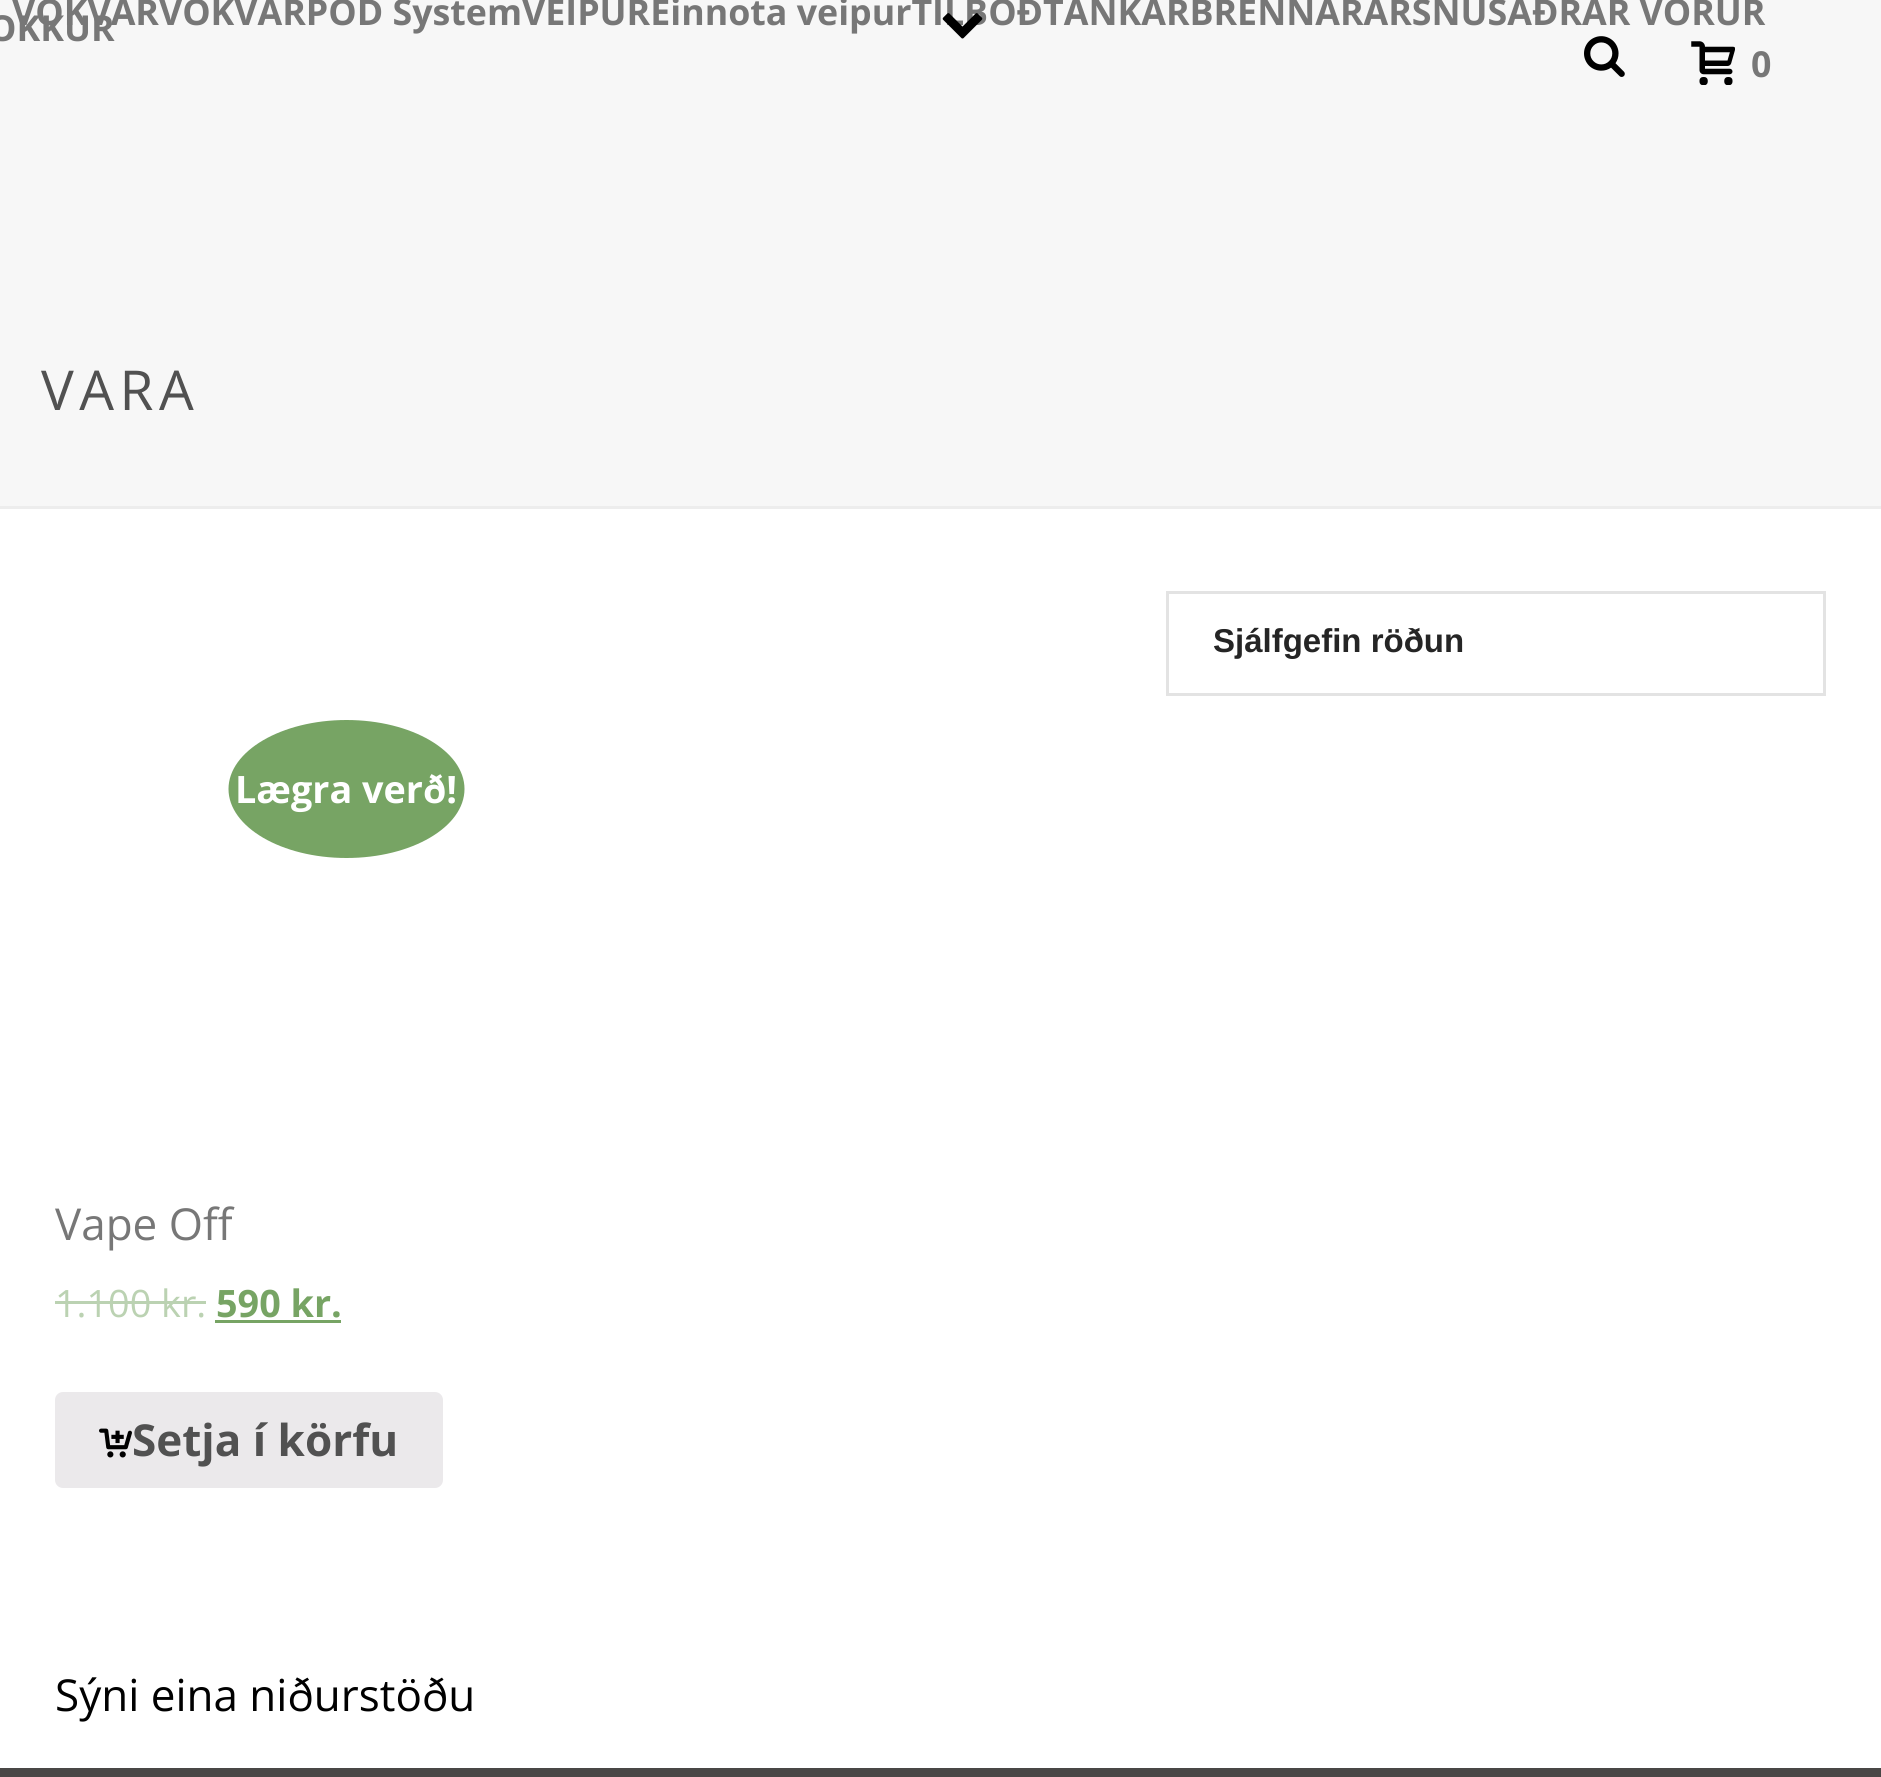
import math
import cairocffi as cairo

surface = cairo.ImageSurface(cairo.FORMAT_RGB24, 1881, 1777)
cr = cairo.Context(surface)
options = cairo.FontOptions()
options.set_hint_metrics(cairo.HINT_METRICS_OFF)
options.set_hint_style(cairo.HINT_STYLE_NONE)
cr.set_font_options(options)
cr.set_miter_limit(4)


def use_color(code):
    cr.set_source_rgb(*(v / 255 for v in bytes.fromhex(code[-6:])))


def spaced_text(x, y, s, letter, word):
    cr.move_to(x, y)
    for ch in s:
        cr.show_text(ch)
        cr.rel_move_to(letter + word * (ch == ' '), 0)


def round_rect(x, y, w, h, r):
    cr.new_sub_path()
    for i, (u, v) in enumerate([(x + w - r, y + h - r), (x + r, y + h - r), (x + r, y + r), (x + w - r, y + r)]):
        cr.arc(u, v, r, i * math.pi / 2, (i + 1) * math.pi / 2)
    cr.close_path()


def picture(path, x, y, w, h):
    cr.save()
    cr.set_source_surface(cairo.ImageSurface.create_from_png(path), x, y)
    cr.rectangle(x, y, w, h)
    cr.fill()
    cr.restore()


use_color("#ffffff")
cr.paint()
use_color("#f7f7f7")
cr.rectangle(0, 0, 1881, 506)
cr.fill()
use_color("#ededed")
cr.rectangle(0, 506, 1881, 3)
cr.fill()
cr.select_font_face("Open Sans", cairo.FONT_SLANT_NORMAL, cairo.FONT_WEIGHT_BOLD)
cr.set_font_size(35.75)
use_color("#777777")
cr.move_to(12, 25)
cr.show_text("VÖKVARVÖKVARPOD SystemVEIPUREinnota veipurTILBOÐTANKARBRENNARARSNUSAÐRAR VÖRUR")
cr.move_to(-12, 41)
cr.show_text("OKKUR")
picture("img1.png", 1584, 36, 41, 41)
picture("img2.png", 1691, 41, 44, 44)
cr.move_to(1751, 77)
cr.show_text("0")
picture("img3.png", 942, 13, 41, 26)
cr.select_font_face("Open Sans")
cr.set_font_size(55)
use_color("#515151")
spaced_text(41, 410, "VARA", 5.5, 0)
cr.rectangle(1167.5, 592.5, 657, 102)
use_color("#e3e3e3")
cr.set_line_width(3)
cr.stroke()
cr.select_font_face("Liberation Sans", cairo.FONT_SLANT_NORMAL, cairo.FONT_WEIGHT_BOLD)
cr.set_font_size(33)
use_color("#252525")
cr.move_to(1213, 652)
cr.show_text("Sjálfgefin röðun")
use_color("#77a464")
cr.new_path()
cr.move_to(346.5, 720)
cr.curve_to(411.5, 720, 464.5, 751, 464.5, 789)
cr.curve_to(464.5, 827, 411.5, 858, 346.5, 858)
cr.curve_to(281.5, 858, 228.5, 827, 228.5, 789)
cr.curve_to(228.5, 751, 281.5, 720, 346.5, 720)
cr.close_path()
cr.fill()
cr.select_font_face("Open Sans", cairo.FONT_SLANT_NORMAL, cairo.FONT_WEIGHT_BOLD)
cr.set_font_size(37.75)
use_color("#ffffff")
cr.move_to(235, 803)
cr.show_text("Lægra verð!")
cr.select_font_face("Open Sans")
cr.set_font_size(44)
use_color("#777777")
cr.move_to(55, 1240)
cr.show_text("Vape Off")
cr.set_font_size(37.75)
use_color("#bbd2b2")
cr.move_to(55, 1317)
cr.show_text("1.100 kr.")
cr.rectangle(55, 1301, 151, 3)
cr.fill()
cr.select_font_face("Open Sans", cairo.FONT_SLANT_NORMAL, cairo.FONT_WEIGHT_BOLD)
use_color("#77a464")
cr.move_to(216, 1317)
cr.show_text("590 kr.")
cr.rectangle(215, 1320, 126, 3)
cr.fill()
use_color("#ebe9eb")
round_rect(55, 1392, 388, 96, 8)
cr.fill()
picture("img4.png", 99, 1428, 33, 30)
cr.set_font_size(44)
use_color("#515151")
cr.move_to(132, 1456)
cr.show_text("Setja í körfu")
cr.select_font_face("Open Sans")
use_color("#000000")
cr.move_to(55, 1711)
cr.show_text("Sýni eina niðurstöðu")
use_color("#494746")
cr.rectangle(0, 1768, 1881, 9)
cr.fill()
surface.write_to_png("result.png")
